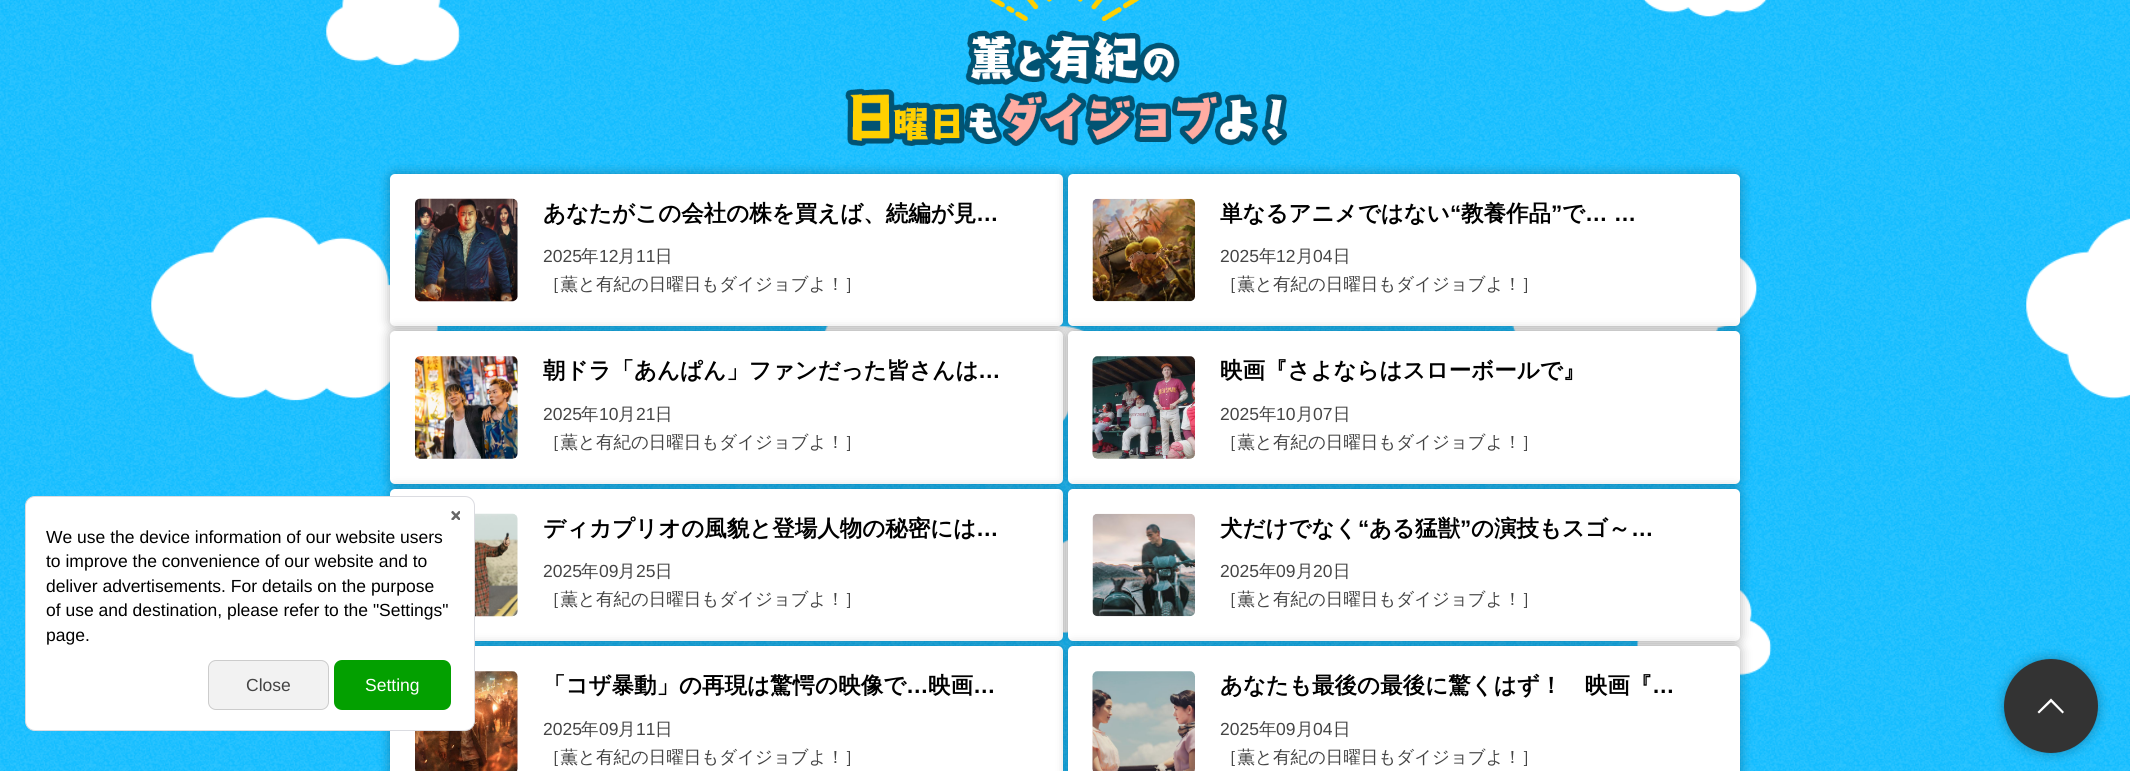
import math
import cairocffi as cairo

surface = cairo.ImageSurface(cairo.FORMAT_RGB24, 2130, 771)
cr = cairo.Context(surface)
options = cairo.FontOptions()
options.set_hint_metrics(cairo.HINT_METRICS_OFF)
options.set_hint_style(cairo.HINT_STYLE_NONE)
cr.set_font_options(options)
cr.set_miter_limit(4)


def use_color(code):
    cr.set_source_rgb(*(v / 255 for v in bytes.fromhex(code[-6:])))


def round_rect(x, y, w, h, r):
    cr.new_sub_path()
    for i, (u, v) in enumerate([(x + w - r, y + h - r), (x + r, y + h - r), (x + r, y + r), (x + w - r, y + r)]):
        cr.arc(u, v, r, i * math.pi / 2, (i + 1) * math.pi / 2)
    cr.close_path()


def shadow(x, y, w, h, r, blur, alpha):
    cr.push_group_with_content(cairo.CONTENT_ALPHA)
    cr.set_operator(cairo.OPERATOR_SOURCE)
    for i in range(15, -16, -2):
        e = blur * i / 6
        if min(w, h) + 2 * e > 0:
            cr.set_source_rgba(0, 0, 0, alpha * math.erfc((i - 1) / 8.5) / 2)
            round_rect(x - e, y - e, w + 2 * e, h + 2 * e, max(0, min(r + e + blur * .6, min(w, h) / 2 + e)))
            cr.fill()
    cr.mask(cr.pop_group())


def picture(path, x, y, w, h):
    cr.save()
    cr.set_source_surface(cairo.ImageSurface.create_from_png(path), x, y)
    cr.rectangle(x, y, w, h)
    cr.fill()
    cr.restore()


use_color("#ffffff")
cr.paint()
picture("img2.png", 0, 0, 2130, 771)
picture("img13.png", 151, 217, 1979, 205)
picture("img3.png", 326, 0, 1446, 676)
use_color("#000000")
shadow(390, 174, 673, 152, 5, 6, 0.3)
use_color("#ffffff")
round_rect(390, 174, 673, 152, 5)
cr.fill()
use_color("#000000")
shadow(1068, 174, 672, 152, 5, 6, 0.3)
use_color("#ffffff")
round_rect(1068, 174, 672, 152, 5)
cr.fill()
use_color("#000000")
shadow(390, 331, 673, 153, 5, 6, 0.3)
use_color("#ffffff")
round_rect(390, 331, 673, 153, 5)
cr.fill()
use_color("#000000")
shadow(1068, 331, 672, 153, 5, 6, 0.3)
use_color("#ffffff")
round_rect(1068, 331, 672, 153, 5)
cr.fill()
use_color("#000000")
shadow(390, 489, 673, 152, 5, 6, 0.3)
use_color("#ffffff")
round_rect(390, 489, 673, 152, 5)
cr.fill()
use_color("#000000")
shadow(1068, 489, 672, 152, 5, 6, 0.3)
use_color("#ffffff")
round_rect(1068, 489, 672, 152, 5)
cr.fill()
use_color("#000000")
shadow(390, 646, 673, 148, 5, 6, 0.3)
use_color("#ffffff")
round_rect(390, 646, 673, 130, 5)
cr.fill()
picture("img11.png", 415, 671, 103, 100)
round_rect(25.5, 496.5, 449, 234, 9.5)
cr.fill_preserve()
use_color("#dbdce1")
cr.set_line_width(1)
cr.stroke()
picture("img1.png", 451, 510, 9, 10)
cr.select_font_face("Liberation Sans")
cr.set_font_size(17.5)
use_color("#000000")
cr.move_to(46, 543)
cr.show_text("We use the device information of our website users")
cr.move_to(46, 567)
cr.show_text("to improve the convenience of our website and to")
cr.move_to(46, 592)
cr.show_text("deliver advertisements. For details on the purpose")
cr.move_to(46, 616)
cr.show_text("of use and destination, please refer to the \"Settings\"")
cr.move_to(46, 641)
cr.show_text("page.")
use_color("#f2f2f2")
round_rect(208.5, 660.5, 120, 49, 7.5)
cr.fill_preserve()
use_color("#cccccc")
cr.stroke()
use_color("#444444")
cr.move_to(246, 691)
cr.show_text("Close")
use_color("#03a000")
round_rect(334, 660, 117, 50, 8)
cr.fill()
use_color("#ffffff")
cr.move_to(365, 691)
cr.show_text("Setting")
picture("img4.png", 845, 0, 443, 146)
picture("img5.png", 415, 198, 103, 104)
cr.select_font_face("WenQuanYi Zen Hei", cairo.FONT_SLANT_NORMAL, cairo.FONT_WEIGHT_BOLD)
cr.set_font_size(22.5)
use_color("#000000")
cr.move_to(543, 221)
cr.show_text("あなたがこの会社の株を買えば、続編が見")
cr.select_font_face("Liberation Sans", cairo.FONT_SLANT_NORMAL, cairo.FONT_WEIGHT_BOLD)
cr.move_to(976, 221)
cr.show_text("…")
cr.select_font_face("Liberation Sans")
cr.set_font_size(17.5)
use_color("#444444")
cr.move_to(543, 262)
cr.show_text("2025")
cr.select_font_face("WenQuanYi Zen Hei Medium")
cr.move_to(581, 262)
cr.show_text("年")
cr.select_font_face("Liberation Sans")
cr.move_to(599, 262)
cr.show_text("12")
cr.select_font_face("WenQuanYi Zen Hei Medium")
cr.move_to(618, 262)
cr.show_text("月")
cr.select_font_face("Liberation Sans")
cr.move_to(636, 262)
cr.show_text("11")
cr.select_font_face("WenQuanYi Zen Hei Medium")
cr.move_to(655, 262)
cr.show_text("日")
cr.move_to(543, 290)
cr.show_text("［薫と有紀の日曜日もダイジョブよ！］")
picture("img6.png", 1092, 198, 103, 104)
cr.select_font_face("WenQuanYi Zen Hei", cairo.FONT_SLANT_NORMAL, cairo.FONT_WEIGHT_BOLD)
cr.set_font_size(22.5)
use_color("#000000")
cr.move_to(1220, 221)
cr.show_text("単なるアニメではない")
cr.select_font_face("Liberation Sans", cairo.FONT_SLANT_NORMAL, cairo.FONT_WEIGHT_BOLD)
cr.move_to(1450, 221)
cr.show_text("“")
cr.select_font_face("WenQuanYi Zen Hei", cairo.FONT_SLANT_NORMAL, cairo.FONT_WEIGHT_BOLD)
cr.move_to(1461, 221)
cr.show_text("教養作品")
cr.select_font_face("Liberation Sans", cairo.FONT_SLANT_NORMAL, cairo.FONT_WEIGHT_BOLD)
cr.move_to(1551, 221)
cr.show_text("”")
cr.select_font_face("WenQuanYi Zen Hei", cairo.FONT_SLANT_NORMAL, cairo.FONT_WEIGHT_BOLD)
cr.move_to(1562, 221)
cr.show_text("で")
cr.select_font_face("Liberation Sans", cairo.FONT_SLANT_NORMAL, cairo.FONT_WEIGHT_BOLD)
cr.move_to(1585, 221)
cr.show_text("… …")
cr.select_font_face("Liberation Sans")
cr.set_font_size(17.5)
use_color("#444444")
cr.move_to(1220, 262)
cr.show_text("2025")
cr.select_font_face("WenQuanYi Zen Hei Medium")
cr.move_to(1259, 262)
cr.show_text("年")
cr.select_font_face("Liberation Sans")
cr.move_to(1276, 262)
cr.show_text("12")
cr.select_font_face("WenQuanYi Zen Hei Medium")
cr.move_to(1296, 262)
cr.show_text("月")
cr.select_font_face("Liberation Sans")
cr.move_to(1313, 262)
cr.show_text("04")
cr.select_font_face("WenQuanYi Zen Hei Medium")
cr.move_to(1333, 262)
cr.show_text("日")
cr.move_to(1220, 290)
cr.show_text("［薫と有紀の日曜日もダイジョブよ！］")
picture("img7.png", 414, 356, 104, 103)
cr.select_font_face("WenQuanYi Zen Hei", cairo.FONT_SLANT_NORMAL, cairo.FONT_WEIGHT_BOLD)
cr.set_font_size(22.5)
use_color("#000000")
cr.move_to(543, 378)
cr.show_text("朝ドラ「あんぱん」ファンだった皆さんは")
cr.select_font_face("Liberation Sans", cairo.FONT_SLANT_NORMAL, cairo.FONT_WEIGHT_BOLD)
cr.move_to(978, 378)
cr.show_text("…")
cr.select_font_face("Liberation Sans")
cr.set_font_size(17.5)
use_color("#444444")
cr.move_to(543, 420)
cr.show_text("2025")
cr.select_font_face("WenQuanYi Zen Hei Medium")
cr.move_to(581, 420)
cr.show_text("年")
cr.select_font_face("Liberation Sans")
cr.move_to(599, 420)
cr.show_text("10")
cr.select_font_face("WenQuanYi Zen Hei Medium")
cr.move_to(618, 420)
cr.show_text("月")
cr.select_font_face("Liberation Sans")
cr.move_to(636, 420)
cr.show_text("21")
cr.select_font_face("WenQuanYi Zen Hei Medium")
cr.move_to(655, 420)
cr.show_text("日")
cr.move_to(543, 448)
cr.show_text("［薫と有紀の日曜日もダイジョブよ！］")
picture("img8.png", 1092, 356, 104, 103)
cr.select_font_face("WenQuanYi Zen Hei", cairo.FONT_SLANT_NORMAL, cairo.FONT_WEIGHT_BOLD)
cr.set_font_size(22.5)
use_color("#000000")
cr.move_to(1220, 378)
cr.show_text("映画『さよならはスローボールで』")
cr.select_font_face("Liberation Sans")
cr.set_font_size(17.5)
use_color("#444444")
cr.move_to(1220, 420)
cr.show_text("2025")
cr.select_font_face("WenQuanYi Zen Hei Medium")
cr.move_to(1259, 420)
cr.show_text("年")
cr.select_font_face("Liberation Sans")
cr.move_to(1276, 420)
cr.show_text("10")
cr.select_font_face("WenQuanYi Zen Hei Medium")
cr.move_to(1296, 420)
cr.show_text("月")
cr.select_font_face("Liberation Sans")
cr.move_to(1313, 420)
cr.show_text("07")
cr.select_font_face("WenQuanYi Zen Hei Medium")
cr.move_to(1333, 420)
cr.show_text("日")
cr.move_to(1220, 448)
cr.show_text("［薫と有紀の日曜日もダイジョブよ！］")
picture("img9.png", 475, 513, 43, 104)
cr.select_font_face("WenQuanYi Zen Hei", cairo.FONT_SLANT_NORMAL, cairo.FONT_WEIGHT_BOLD)
cr.set_font_size(22.5)
use_color("#000000")
cr.move_to(543, 536)
cr.show_text("ディカプリオの風貌と登場人物の秘密には")
cr.select_font_face("Liberation Sans", cairo.FONT_SLANT_NORMAL, cairo.FONT_WEIGHT_BOLD)
cr.move_to(976, 536)
cr.show_text("…")
cr.select_font_face("Liberation Sans")
cr.set_font_size(17.5)
use_color("#444444")
cr.move_to(543, 577)
cr.show_text("2025")
cr.select_font_face("WenQuanYi Zen Hei Medium")
cr.move_to(581, 577)
cr.show_text("年")
cr.select_font_face("Liberation Sans")
cr.move_to(599, 577)
cr.show_text("09")
cr.select_font_face("WenQuanYi Zen Hei Medium")
cr.move_to(618, 577)
cr.show_text("月")
cr.select_font_face("Liberation Sans")
cr.move_to(636, 577)
cr.show_text("25")
cr.select_font_face("WenQuanYi Zen Hei Medium")
cr.move_to(655, 577)
cr.show_text("日")
cr.move_to(543, 605)
cr.show_text("［薫と有紀の日曜日もダイジョブよ！］")
picture("img10.png", 1092, 513, 103, 104)
cr.select_font_face("WenQuanYi Zen Hei", cairo.FONT_SLANT_NORMAL, cairo.FONT_WEIGHT_BOLD)
cr.set_font_size(22.5)
use_color("#000000")
cr.move_to(1220, 536)
cr.show_text("犬だけでなく")
cr.select_font_face("Liberation Sans", cairo.FONT_SLANT_NORMAL, cairo.FONT_WEIGHT_BOLD)
cr.move_to(1358, 536)
cr.show_text("“")
cr.select_font_face("WenQuanYi Zen Hei", cairo.FONT_SLANT_NORMAL, cairo.FONT_WEIGHT_BOLD)
cr.move_to(1369, 536)
cr.show_text("ある猛獣")
cr.select_font_face("Liberation Sans", cairo.FONT_SLANT_NORMAL, cairo.FONT_WEIGHT_BOLD)
cr.move_to(1460, 536)
cr.show_text("”")
cr.select_font_face("WenQuanYi Zen Hei", cairo.FONT_SLANT_NORMAL, cairo.FONT_WEIGHT_BOLD)
cr.move_to(1471, 536)
cr.show_text("の演技もスゴ～")
cr.select_font_face("Liberation Sans", cairo.FONT_SLANT_NORMAL, cairo.FONT_WEIGHT_BOLD)
cr.move_to(1631, 536)
cr.show_text("…")
cr.select_font_face("Liberation Sans")
cr.set_font_size(17.5)
use_color("#444444")
cr.move_to(1220, 577)
cr.show_text("2025")
cr.select_font_face("WenQuanYi Zen Hei Medium")
cr.move_to(1259, 577)
cr.show_text("年")
cr.select_font_face("Liberation Sans")
cr.move_to(1276, 577)
cr.show_text("09")
cr.select_font_face("WenQuanYi Zen Hei Medium")
cr.move_to(1296, 577)
cr.show_text("月")
cr.select_font_face("Liberation Sans")
cr.move_to(1313, 577)
cr.show_text("20")
cr.select_font_face("WenQuanYi Zen Hei Medium")
cr.move_to(1333, 577)
cr.show_text("日")
cr.move_to(1220, 605)
cr.show_text("［薫と有紀の日曜日もダイジョブよ！］")
cr.select_font_face("WenQuanYi Zen Hei", cairo.FONT_SLANT_NORMAL, cairo.FONT_WEIGHT_BOLD)
cr.set_font_size(22.5)
use_color("#000000")
cr.move_to(543, 693)
cr.show_text("「コザ暴動」の再現は驚愕の映像で")
cr.select_font_face("Liberation Sans", cairo.FONT_SLANT_NORMAL, cairo.FONT_WEIGHT_BOLD)
cr.move_to(906, 693)
cr.show_text("…")
cr.select_font_face("WenQuanYi Zen Hei", cairo.FONT_SLANT_NORMAL, cairo.FONT_WEIGHT_BOLD)
cr.move_to(928, 693)
cr.show_text("映画")
cr.select_font_face("Liberation Sans", cairo.FONT_SLANT_NORMAL, cairo.FONT_WEIGHT_BOLD)
cr.move_to(973, 693)
cr.show_text("…")
cr.select_font_face("Liberation Sans")
cr.set_font_size(17.5)
use_color("#444444")
cr.move_to(543, 735)
cr.show_text("2025")
cr.select_font_face("WenQuanYi Zen Hei Medium")
cr.move_to(581, 735)
cr.show_text("年")
cr.select_font_face("Liberation Sans")
cr.move_to(599, 735)
cr.show_text("09")
cr.select_font_face("WenQuanYi Zen Hei Medium")
cr.move_to(618, 735)
cr.show_text("月")
cr.select_font_face("Liberation Sans")
cr.move_to(636, 735)
cr.show_text("11")
cr.select_font_face("WenQuanYi Zen Hei Medium")
cr.move_to(655, 735)
cr.show_text("日")
cr.move_to(543, 763)
cr.show_text("［薫と有紀の日曜日もダイジョブよ！］")
use_color("#000000")
shadow(1068, 646, 672, 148, 5, 6, 0.3)
use_color("#ffffff")
round_rect(1068, 646, 672, 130, 5)
cr.fill()
picture("img12.png", 1092, 671, 104, 100)
cr.select_font_face("WenQuanYi Zen Hei", cairo.FONT_SLANT_NORMAL, cairo.FONT_WEIGHT_BOLD)
cr.set_font_size(22.5)
use_color("#000000")
cr.move_to(1220, 693)
cr.show_text("あなたも最後の最後に驚くはず！　映画『")
cr.select_font_face("Liberation Sans", cairo.FONT_SLANT_NORMAL, cairo.FONT_WEIGHT_BOLD)
cr.move_to(1652, 693)
cr.show_text("…")
cr.select_font_face("Liberation Sans")
cr.set_font_size(17.5)
use_color("#444444")
cr.move_to(1220, 735)
cr.show_text("2025")
cr.select_font_face("WenQuanYi Zen Hei Medium")
cr.move_to(1259, 735)
cr.show_text("年")
cr.select_font_face("Liberation Sans")
cr.move_to(1276, 735)
cr.show_text("09")
cr.select_font_face("WenQuanYi Zen Hei Medium")
cr.move_to(1296, 735)
cr.show_text("月")
cr.select_font_face("Liberation Sans")
cr.move_to(1313, 735)
cr.show_text("04")
cr.select_font_face("WenQuanYi Zen Hei Medium")
cr.move_to(1333, 735)
cr.show_text("日")
cr.move_to(1220, 763)
cr.show_text("［薫と有紀の日曜日もダイジョブよ！］")
use_color("#000000")
shadow(2004, 659, 94, 94, 47, 6, 0.3)
use_color("#333333")
cr.arc(2051, 706, 47, 0, 2 * math.pi)
cr.fill()
use_color("#ffffff")
cr.new_path()
cr.move_to(2039, 713.5)
cr.line_to(2051, 702)
cr.line_to(2062.5, 713.5)
cr.line_to(2064, 712)
cr.line_to(2051, 698.5)
cr.line_to(2037.5, 712)
cr.close_path()
cr.fill()
surface.write_to_png("result.png")
